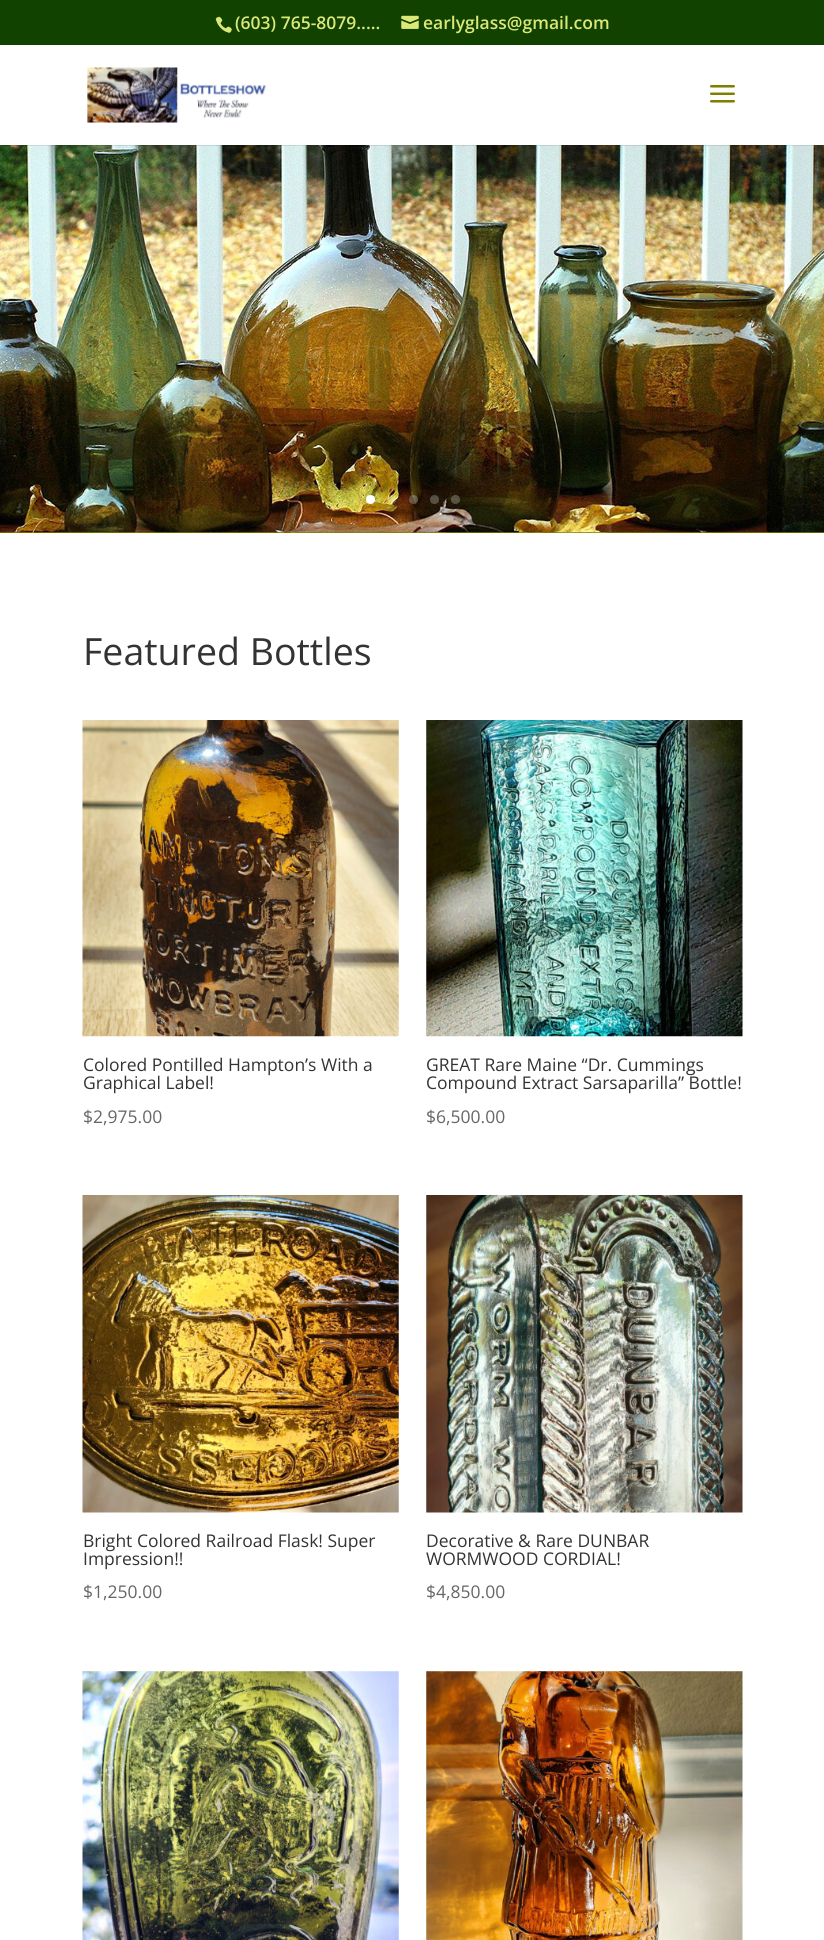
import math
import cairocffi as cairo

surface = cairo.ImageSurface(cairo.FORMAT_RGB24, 824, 1940)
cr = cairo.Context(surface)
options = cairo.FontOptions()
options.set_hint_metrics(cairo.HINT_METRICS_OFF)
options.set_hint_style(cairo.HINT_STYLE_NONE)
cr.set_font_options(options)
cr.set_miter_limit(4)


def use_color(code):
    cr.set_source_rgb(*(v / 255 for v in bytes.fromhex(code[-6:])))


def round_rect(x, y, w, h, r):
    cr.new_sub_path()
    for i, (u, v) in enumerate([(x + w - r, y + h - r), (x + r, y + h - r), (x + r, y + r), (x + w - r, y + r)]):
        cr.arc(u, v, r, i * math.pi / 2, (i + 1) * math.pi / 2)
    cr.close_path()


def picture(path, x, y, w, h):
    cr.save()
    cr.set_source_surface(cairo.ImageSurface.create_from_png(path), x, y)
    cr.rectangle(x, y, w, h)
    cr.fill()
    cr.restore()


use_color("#ffffff")
cr.paint()
use_color("#124200")
cr.rectangle(0, 0, 824, 45)
cr.fill()
picture("img1.png", 215, 16, 17, 17)
cr.select_font_face("Open Sans SemiBold")
cr.set_font_size(17.5)
use_color("#dbe878")
cr.move_to(235, 29)
cr.show_text("(603) 765-8079.....")
picture("img2.png", 401, 15, 18, 14)
cr.move_to(423, 29)
cr.show_text("earlyglass@gmail.com")
use_color("#808000")
cr.rectangle(0, 532, 824, 1)
cr.fill()
picture("img5.png", 0, 145, 824, 388)
cr.set_source_rgba(0, 0, 0, 0.1)
cr.rectangle(0, 145, 824, 1)
cr.fill()
picture("img3.png", 87, 67, 180, 56)
picture("img4.png", 710, 85, 25, 18)
use_color("#ffffff")
cr.arc(370.5, 499.5, 4.5, 0, 2 * math.pi)
cr.fill()
cr.set_source_rgba(1, 1, 1, 0.25)
round_rect(388, 495, 8, 9, 4)
cr.fill()
cr.arc(413.5, 499.5, 4.5, 0, 2 * math.pi)
cr.fill()
cr.arc(434.5, 499.5, 4.5, 0, 2 * math.pi)
cr.fill()
cr.arc(455.5, 499.5, 4.5, 0, 2 * math.pi)
cr.fill()
cr.select_font_face("Open Sans")
cr.set_font_size(37.5)
use_color("#333333")
cr.move_to(83, 665)
cr.show_text("Featured Bottles")
picture("img6.png", 82, 720, 317, 317)
cr.set_font_size(17.5)
cr.move_to(83, 1071)
cr.show_text("Colored Pontilled Hampton’s With a")
cr.move_to(83, 1089)
cr.show_text("Graphical Label!")
use_color("#666666")
cr.move_to(83, 1123)
cr.show_text("$2,975.00")
picture("img7.png", 426, 720, 317, 317)
use_color("#333333")
cr.move_to(426, 1071)
cr.show_text("GREAT Rare Maine “Dr. Cummings")
cr.move_to(426, 1089)
cr.show_text("Compound Extract Sarsaparilla” Bottle!")
use_color("#666666")
cr.move_to(426, 1123)
cr.show_text("$6,500.00")
picture("img8.png", 82, 1195, 317, 318)
use_color("#333333")
cr.move_to(83, 1547)
cr.show_text("Bright Colored Railroad Flask! Super")
cr.move_to(83, 1565)
cr.show_text("Impression!!")
use_color("#666666")
cr.move_to(83, 1598)
cr.show_text("$1,250.00")
picture("img9.png", 426, 1195, 317, 318)
use_color("#333333")
cr.move_to(426, 1547)
cr.show_text("Decorative & Rare DUNBAR")
cr.move_to(426, 1565)
cr.show_text("WORMWOOD CORDIAL!")
use_color("#666666")
cr.move_to(426, 1598)
cr.show_text("$4,850.00")
picture("img10.png", 82, 1671, 317, 269)
picture("img11.png", 426, 1671, 317, 269)
surface.write_to_png("result.png")
